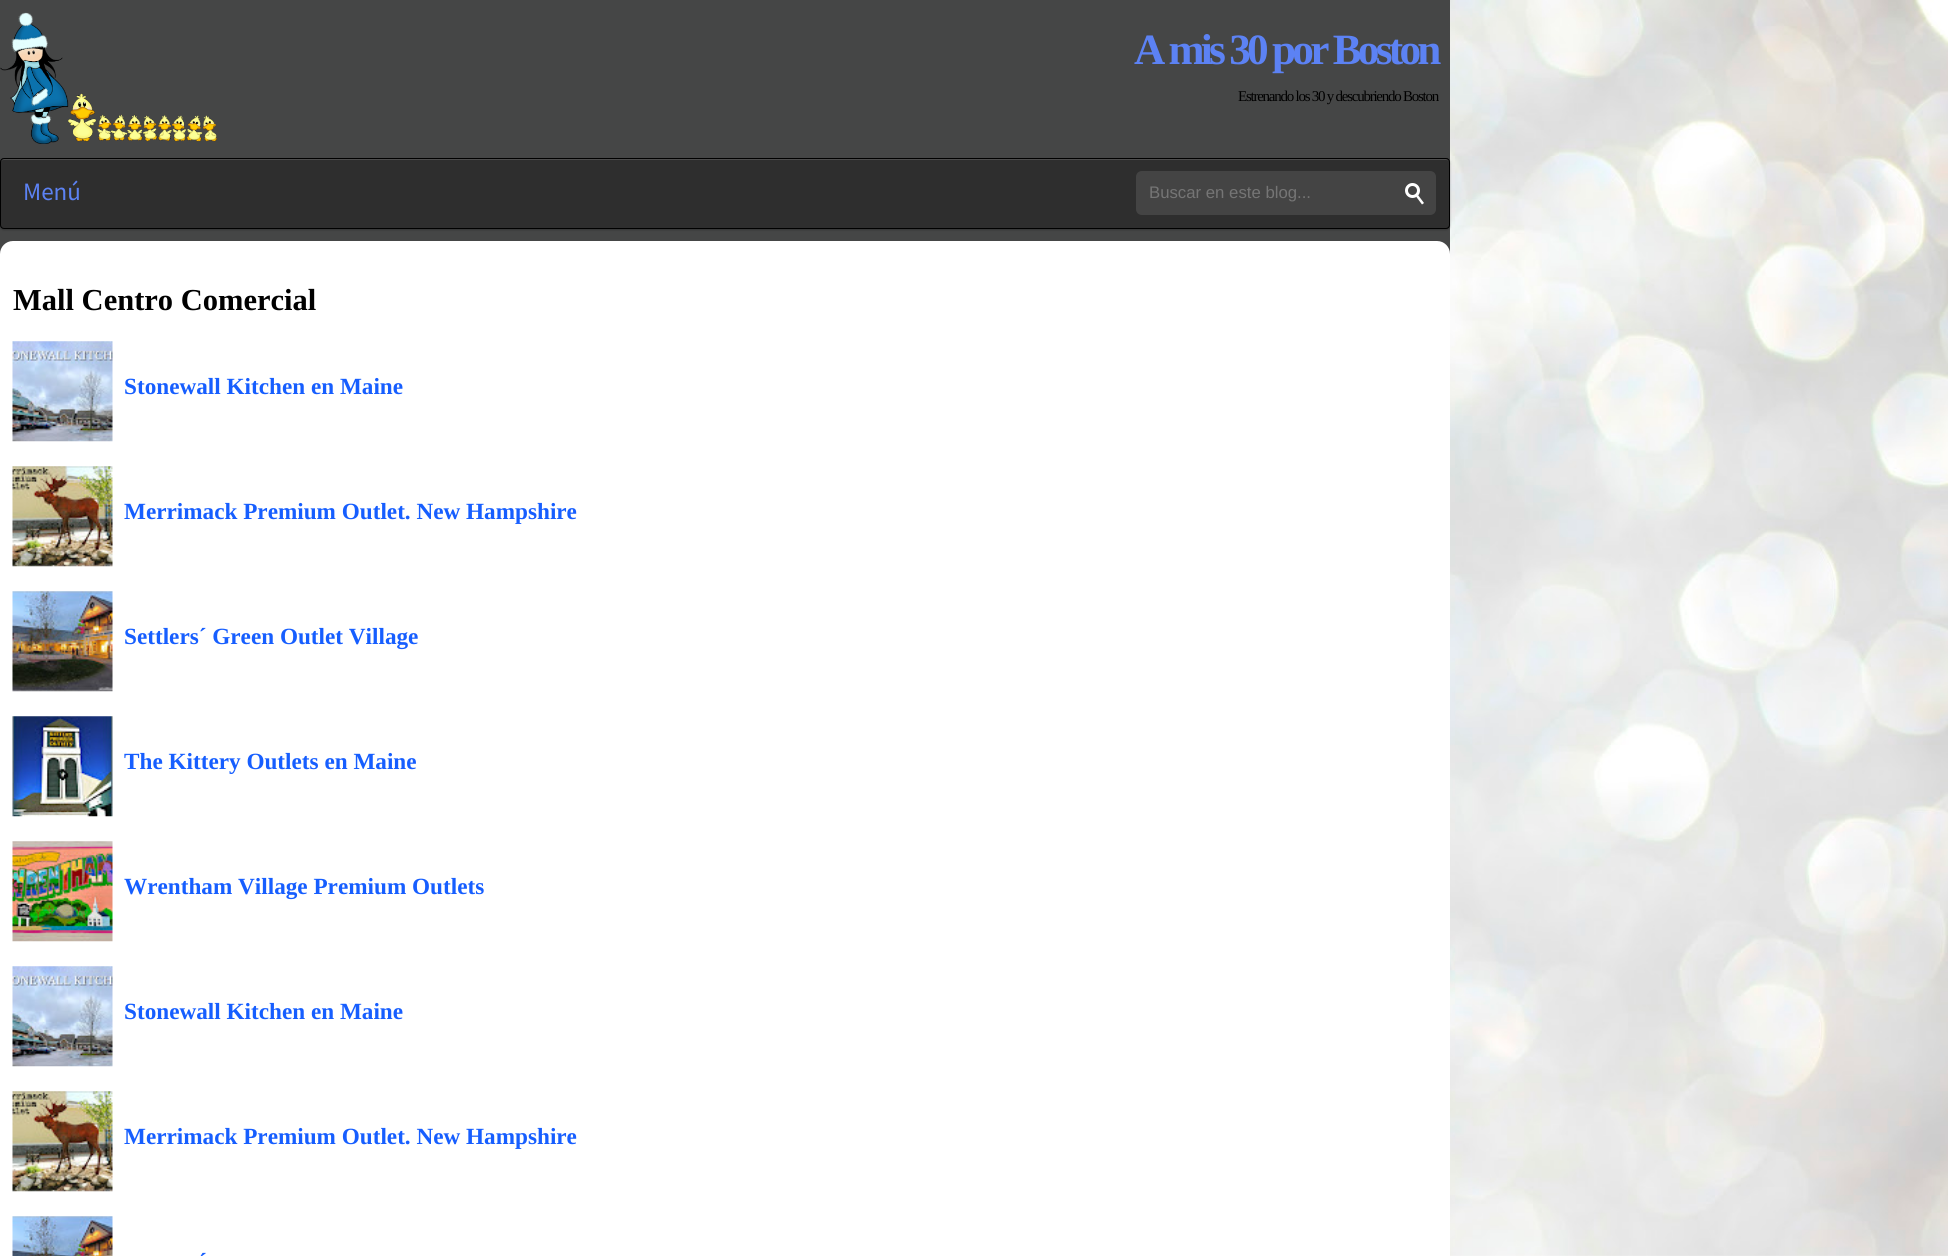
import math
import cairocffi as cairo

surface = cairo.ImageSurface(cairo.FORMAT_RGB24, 1948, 1256)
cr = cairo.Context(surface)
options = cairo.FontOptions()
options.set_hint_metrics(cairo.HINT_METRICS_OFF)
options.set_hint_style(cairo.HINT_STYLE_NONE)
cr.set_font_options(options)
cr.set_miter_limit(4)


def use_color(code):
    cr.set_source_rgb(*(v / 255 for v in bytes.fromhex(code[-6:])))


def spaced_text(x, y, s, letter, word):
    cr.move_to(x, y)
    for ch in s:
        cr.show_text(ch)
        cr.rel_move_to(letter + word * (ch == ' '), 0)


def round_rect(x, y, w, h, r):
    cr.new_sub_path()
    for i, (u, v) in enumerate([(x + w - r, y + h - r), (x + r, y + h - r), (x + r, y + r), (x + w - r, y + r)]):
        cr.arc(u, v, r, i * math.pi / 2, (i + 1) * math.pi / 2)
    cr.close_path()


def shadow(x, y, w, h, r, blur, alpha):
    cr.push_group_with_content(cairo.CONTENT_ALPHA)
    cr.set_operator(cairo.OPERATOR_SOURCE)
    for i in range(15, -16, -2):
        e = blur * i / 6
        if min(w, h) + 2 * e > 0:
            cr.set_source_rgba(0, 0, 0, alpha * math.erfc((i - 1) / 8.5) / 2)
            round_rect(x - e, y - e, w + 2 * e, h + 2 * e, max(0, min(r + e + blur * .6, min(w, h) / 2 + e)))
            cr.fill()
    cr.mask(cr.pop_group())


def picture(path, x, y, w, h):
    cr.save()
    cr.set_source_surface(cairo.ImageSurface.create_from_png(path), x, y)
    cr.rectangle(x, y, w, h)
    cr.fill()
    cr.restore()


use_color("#ffffff")
cr.paint()
picture("img1.png", 1450, 0, 498, 1256)
use_color("#454646")
cr.rectangle(0, 0, 1450, 254)
cr.fill()
picture("img2.png", 0, 12, 217, 132)
cr.select_font_face("Liberation Serif", cairo.FONT_SLANT_NORMAL, cairo.FONT_WEIGHT_BOLD)
cr.set_font_size(43.25)
use_color("#5c82f4")
spaced_text(1134, 64, "A mis 30 por Boston", -3.75, 0)
cr.select_font_face("Liberation Serif")
cr.set_font_size(15)
use_color("#000000")
spaced_text(1238, 101, "Estrenando los 30 y descubriendo Boston", -1.25, 0)
use_color("#020202")
shadow(0, 159, 1450, 71, 4, 1, 0.25)
use_color("#2e2e2e")
round_rect(0, 158, 1450, 71, 4)
cr.fill()
use_color("#4d4d4d")
cr.new_path()
cr.move_to(4, 160)
cr.line_to(1446, 160)
cr.curve_to(1448, 160, 1449, 161, 1449, 162)
cr.curve_to(1449, 160, 1448, 159, 1446, 159)
cr.line_to(4, 159)
cr.curve_to(2, 159, 1, 160, 1, 162)
cr.curve_to(1, 161, 2, 160, 4, 160)
cr.close_path()
cr.fill()
round_rect(0.5, 158.5, 1449, 70, 3.5)
use_color("#000000")
cr.set_line_width(1)
cr.stroke()
cr.select_font_face("Source Sans Pro")
cr.set_font_size(25)
use_color("#5c82f4")
cr.move_to(23, 200)
cr.show_text("Menú")
use_color("#444444")
cr.new_path()
cr.move_to(1142, 171)
cr.line_to(1393, 171)
cr.line_to(1393, 215)
cr.line_to(1142, 215)
cr.curve_to(1138.5, 215, 1136, 212.5, 1136, 209)
cr.line_to(1136, 177)
cr.curve_to(1136, 173.5, 1138.5, 171, 1142, 171)
cr.close_path()
cr.fill()
cr.select_font_face("Liberation Sans")
cr.set_font_size(16.75)
use_color("#757575")
cr.move_to(1149, 198)
cr.show_text("Buscar en este blog...")
use_color("#444444")
cr.new_path()
cr.move_to(1393, 171)
cr.line_to(1430, 171)
cr.curve_to(1433.5, 171, 1436, 173.5, 1436, 177)
cr.line_to(1436, 209)
cr.curve_to(1436, 212.5, 1433.5, 215, 1430, 215)
cr.line_to(1393, 215)
cr.close_path()
cr.fill()
use_color("#ffffff")
cr.new_path()
cr.move_to(1416, 196.5)
cr.line_to(1418, 195)
cr.line_to(1424, 203)
cr.line_to(1422, 204.5)
cr.close_path()
cr.fill()
cr.arc(1412.5, 190.5, 6, 0, 2 * math.pi)
cr.set_line_width(3)
cr.stroke()
round_rect(0, 241, 1450, 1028, 13)
cr.fill()
cr.select_font_face("Liberation Serif", cairo.FONT_SLANT_NORMAL, cairo.FONT_WEIGHT_BOLD)
cr.set_font_size(30.5)
use_color("#000000")
cr.move_to(13, 310)
cr.show_text("Mall Centro Comercial")
picture("img3.png", 12, 341, 101, 101)
cr.set_font_size(23.2)
use_color("#165eff")
cr.move_to(124, 394)
cr.show_text("Stonewall Kitchen en Maine")
picture("img4.png", 12, 466, 101, 101)
cr.move_to(124, 519)
cr.show_text("Merrimack Premium Outlet. New Hampshire")
picture("img5.png", 12, 591, 101, 101)
cr.move_to(124, 644)
cr.show_text("Settlers´ Green Outlet Village")
picture("img6.png", 12, 716, 101, 101)
cr.move_to(124, 769)
cr.show_text("The Kittery Outlets en Maine")
picture("img7.png", 12, 841, 101, 101)
cr.move_to(124, 894)
cr.show_text("Wrentham Village Premium Outlets")
picture("img8.png", 12, 966, 101, 101)
cr.move_to(124, 1019)
cr.show_text("Stonewall Kitchen en Maine")
picture("img9.png", 12, 1091, 101, 101)
cr.move_to(124, 1144)
cr.show_text("Merrimack Premium Outlet. New Hampshire")
picture("img10.png", 12, 1216, 101, 40)
cr.move_to(199, 1269)
cr.show_text("´")
surface.write_to_png("result.png")
